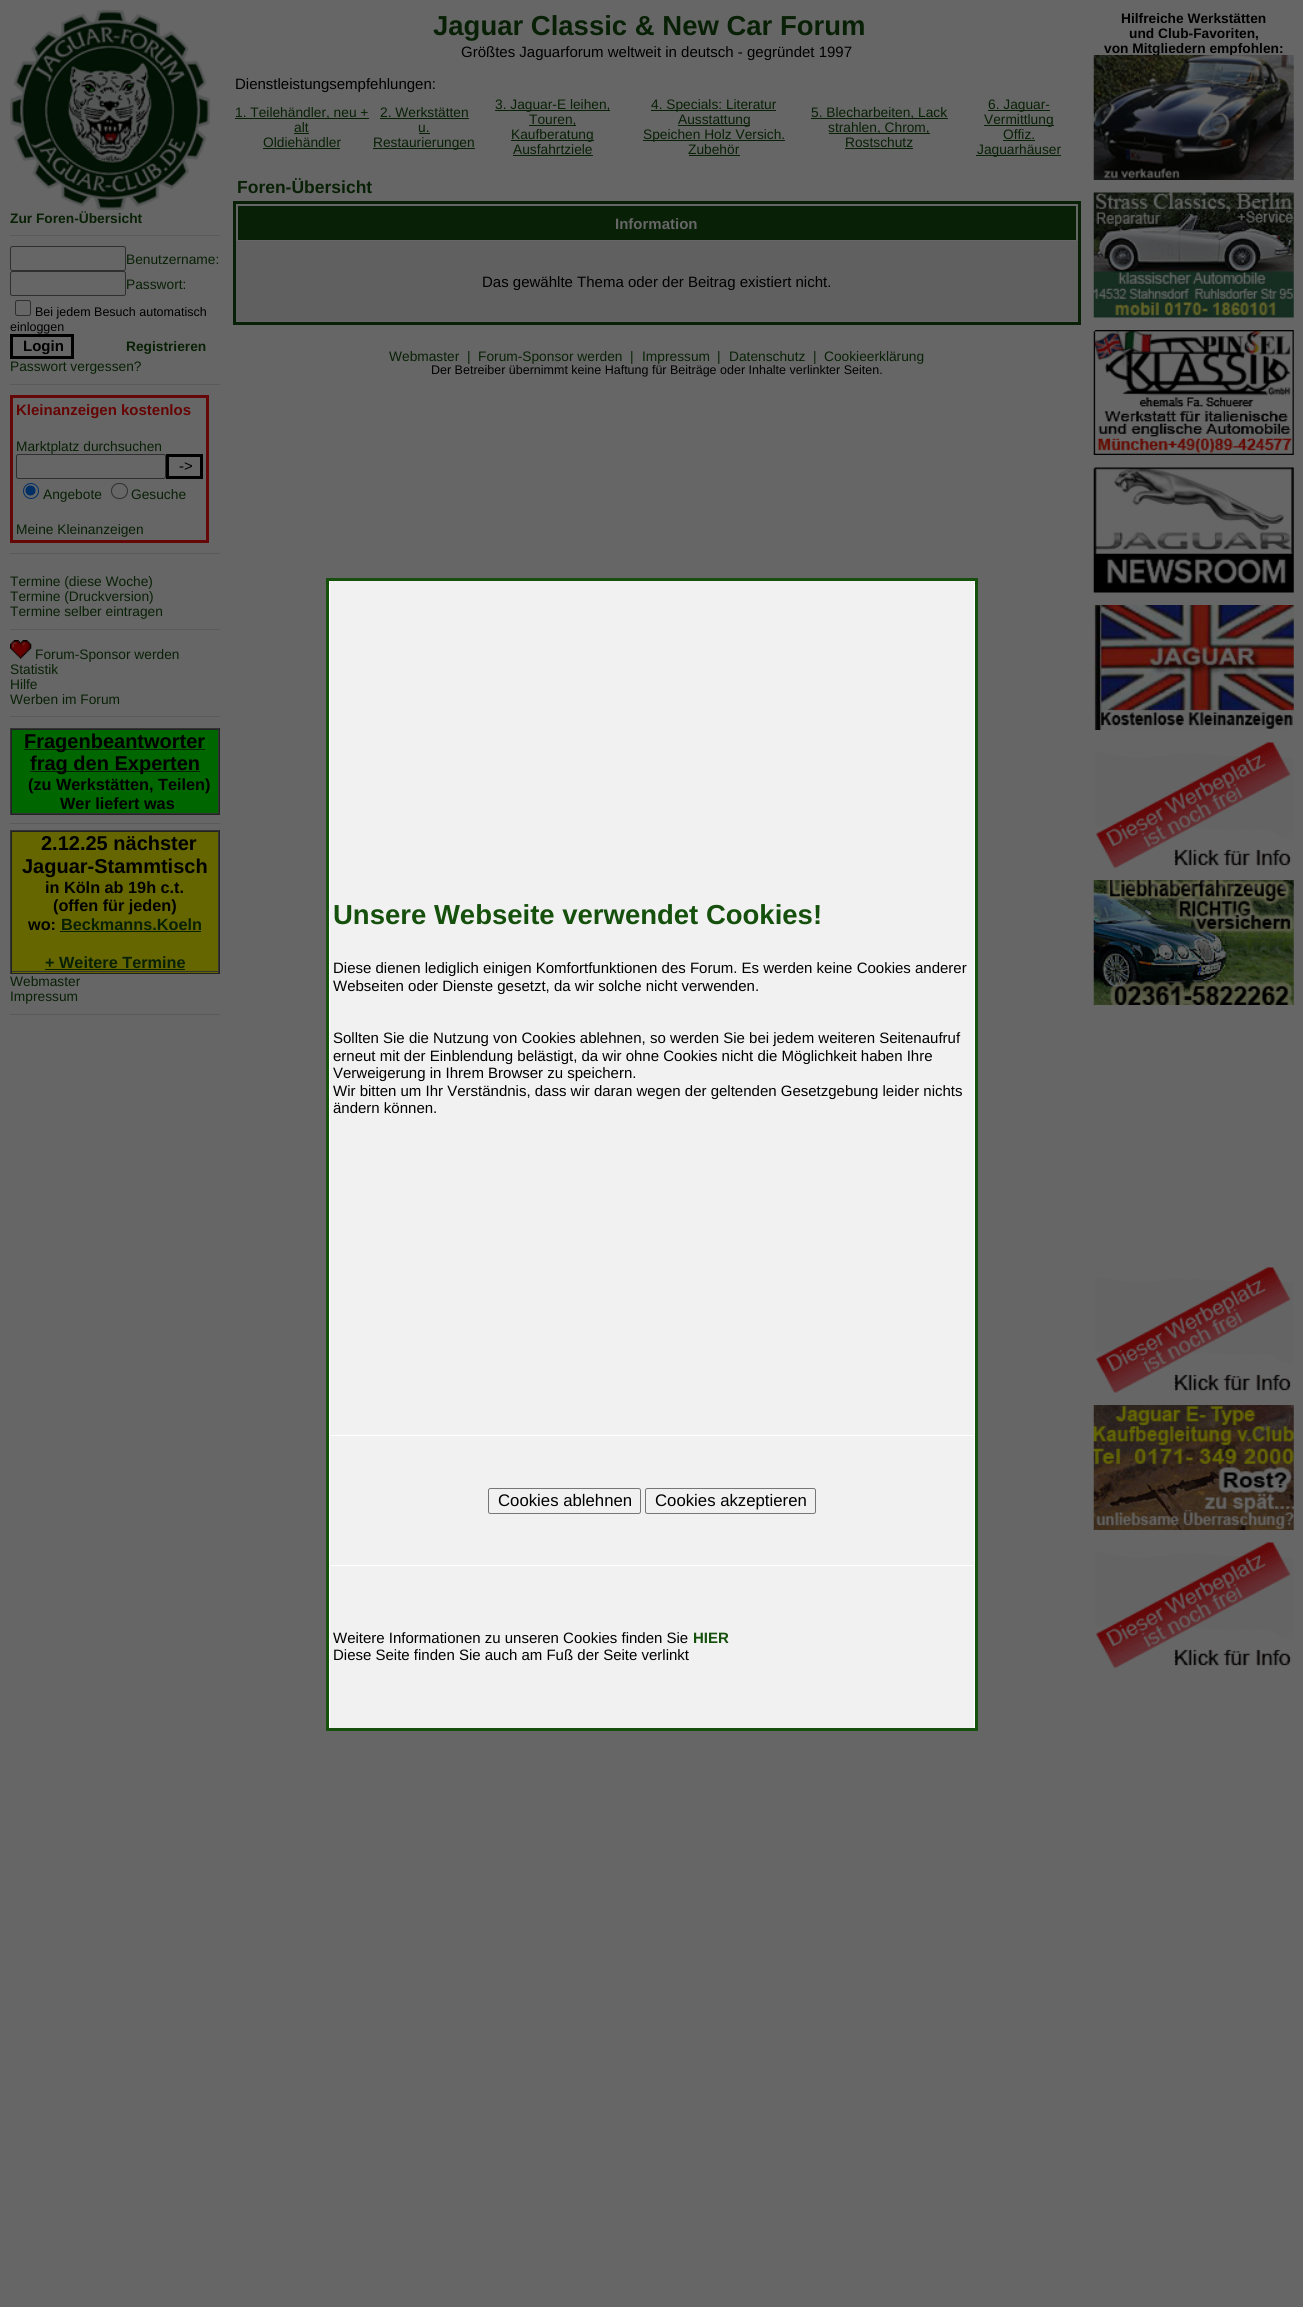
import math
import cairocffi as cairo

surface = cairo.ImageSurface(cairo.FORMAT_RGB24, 1303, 2307)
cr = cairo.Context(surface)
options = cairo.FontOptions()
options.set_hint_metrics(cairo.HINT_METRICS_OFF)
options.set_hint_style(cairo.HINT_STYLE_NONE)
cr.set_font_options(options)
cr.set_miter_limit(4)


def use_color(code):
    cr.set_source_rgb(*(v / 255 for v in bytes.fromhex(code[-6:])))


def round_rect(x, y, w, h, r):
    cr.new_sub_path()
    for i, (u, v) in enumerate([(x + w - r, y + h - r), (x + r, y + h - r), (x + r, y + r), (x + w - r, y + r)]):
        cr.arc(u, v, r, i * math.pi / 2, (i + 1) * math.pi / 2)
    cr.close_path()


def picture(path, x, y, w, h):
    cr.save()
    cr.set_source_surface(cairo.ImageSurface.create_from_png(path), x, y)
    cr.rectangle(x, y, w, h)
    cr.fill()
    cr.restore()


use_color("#666666")
cr.paint()
picture("img1.png", 10, 10, 200, 200)
cr.select_font_face("Liberation Sans", cairo.FONT_SLANT_NORMAL, cairo.FONT_WEIGHT_BOLD)
cr.set_font_size(13.75)
use_color("#082005")
cr.move_to(10, 223)
cr.show_text("Zur Foren-Übersicht")
use_color("#595a59")
cr.rectangle(10, 235, 210, 1)
cr.fill()
round_rect(10.5, 246.5, 115, 24, 2)
use_color("#2f2f2f")
cr.set_line_width(1)
cr.stroke()
cr.select_font_face("Liberation Sans")
use_color("#082005")
cr.move_to(126, 264)
cr.show_text("Benutzername:")
round_rect(10.5, 271.5, 115, 24, 2)
use_color("#2f2f2f")
cr.stroke()
use_color("#082005")
cr.move_to(126, 289)
cr.show_text("Passwort:")
round_rect(15.5, 300.5, 15, 15, 2)
use_color("#2f2f2f")
cr.stroke()
cr.set_font_size(12.5)
use_color("#000000")
cr.move_to(35, 316)
cr.show_text("Bei jedem Besuch automatisch")
cr.move_to(10, 331)
cr.show_text("einloggen")
cr.rectangle(11.5, 335.5, 61, 22)
cr.set_line_width(3)
cr.stroke()
cr.select_font_face("Liberation Sans", cairo.FONT_SLANT_NORMAL, cairo.FONT_WEIGHT_BOLD)
cr.set_font_size(15)
cr.move_to(23, 351)
cr.show_text("Login")
cr.set_font_size(13.75)
use_color("#082005")
cr.move_to(126, 351)
cr.show_text("Registrieren")
cr.select_font_face("Liberation Sans")
cr.move_to(10, 371)
cr.show_text("Passwort vergessen?")
use_color("#595a59")
cr.rectangle(10, 384, 210, 1)
cr.fill()
cr.rectangle(11.5, 396.5, 196, 145)
use_color("#660707")
cr.stroke()
cr.select_font_face("Liberation Sans", cairo.FONT_SLANT_NORMAL, cairo.FONT_WEIGHT_BOLD)
cr.set_font_size(15)
use_color("#660404")
cr.move_to(16, 415)
cr.show_text("Kleinanzeigen kostenlos")
cr.select_font_face("Liberation Sans")
cr.set_font_size(13.75)
use_color("#082005")
cr.move_to(16, 451)
cr.show_text("Marktplatz durchsuchen")
round_rect(16.5, 454.5, 149, 24, 2)
use_color("#2f2f2f")
cr.set_line_width(1)
cr.stroke()
cr.rectangle(167.5, 455.5, 34, 22)
use_color("#000000")
cr.set_line_width(3)
cr.stroke()
cr.set_font_size(15)
cr.move_to(179, 471)
cr.show_text("->")
cr.new_path()
cr.arc(31, 491, 7.5, 0, 2 * math.pi)
use_color("#002f66")
cr.set_line_width(1)
cr.stroke()
cr.arc(30.5, 490.5, 5, 0, 2 * math.pi)
cr.fill()
cr.set_font_size(13.75)
use_color("#082005")
cr.move_to(43, 499)
cr.show_text("Angebote")
round_rect(111.5, 483.5, 16, 15, 7.5)
use_color("#2f2f2f")
cr.stroke()
use_color("#082005")
cr.move_to(131, 499)
cr.show_text("Gesuche")
cr.move_to(16, 534)
cr.show_text("Meine Kleinanzeigen")
use_color("#595a59")
cr.rectangle(10, 553, 210, 1)
cr.fill()
use_color("#082005")
cr.move_to(10, 586)
cr.show_text("Termine (diese Woche)")
cr.move_to(10, 601)
cr.show_text("Termine (Druckversion)")
cr.move_to(10, 616)
cr.show_text("Termine selber eintragen")
use_color("#595a59")
cr.rectangle(10, 629, 210, 1)
cr.fill()
picture("img2.png", 10, 640, 22, 19)
use_color("#082005")
cr.move_to(35, 659)
cr.show_text("Forum-Sponsor werden")
cr.move_to(10, 674)
cr.show_text("Statistik")
cr.move_to(10, 689)
cr.show_text("Hilfe")
cr.move_to(10, 704)
cr.show_text("Werben im Forum")
use_color("#595a59")
cr.rectangle(10, 716, 210, 1)
cr.fill()
use_color("#333333")
cr.rectangle(10, 728, 210, 1)
cr.fill()
use_color("#222222")
cr.rectangle(219, 728, 1, 87)
cr.fill()
cr.rectangle(10, 814, 210, 1)
cr.fill()
use_color("#333333")
cr.rectangle(10, 728, 1, 87)
cr.fill()
use_color("#006600")
cr.rectangle(12, 730, 206, 83)
cr.fill()
use_color("#222222")
cr.rectangle(11, 729, 208, 1)
cr.fill()
use_color("#333333")
cr.rectangle(218, 729, 1, 85)
cr.fill()
cr.rectangle(11, 813, 208, 1)
cr.fill()
use_color("#222222")
cr.rectangle(11, 729, 1, 85)
cr.fill()
use_color("#082005")
cr.rectangle(24, 749, 181, 1)
cr.fill()
cr.select_font_face("Liberation Sans", cairo.FONT_SLANT_NORMAL, cairo.FONT_WEIGHT_BOLD)
cr.set_font_size(20)
use_color("#000000")
cr.move_to(24, 748)
cr.show_text("Fragenbeantworter")
use_color("#082005")
cr.rectangle(30, 771, 170, 1)
cr.fill()
use_color("#000000")
cr.move_to(30, 770)
cr.show_text("frag den Experten")
cr.set_font_size(16.25)
cr.move_to(28, 790)
cr.show_text("(zu Werkstätten, Teilen)")
cr.move_to(60, 809)
cr.show_text("Wer liefert was")
use_color("#595a59")
cr.rectangle(10, 823, 210, 1)
cr.fill()
use_color("#333333")
cr.rectangle(10, 830, 210, 1)
cr.fill()
use_color("#222222")
cr.rectangle(219, 830, 1, 144)
cr.fill()
cr.rectangle(10, 973, 210, 1)
cr.fill()
use_color("#333333")
cr.rectangle(10, 830, 1, 144)
cr.fill()
use_color("#666600")
cr.rectangle(12, 832, 206, 141)
cr.fill()
use_color("#222222")
cr.rectangle(11, 831, 208, 1)
cr.fill()
use_color("#333333")
cr.rectangle(218, 831, 1, 142)
cr.fill()
cr.rectangle(11, 971, 208, 1)
cr.fill()
use_color("#222222")
cr.rectangle(11, 831, 1, 142)
cr.fill()
cr.set_font_size(20)
use_color("#000000")
cr.move_to(41, 850)
cr.show_text("2.12.25 nächster")
cr.move_to(22, 873)
cr.show_text("Jaguar-Stammtisch")
cr.set_font_size(16.25)
cr.move_to(45, 893)
cr.show_text("in Köln ab 19h c.t.")
cr.move_to(53, 911)
cr.show_text("(offen für jeden)")
cr.move_to(28, 930)
cr.show_text("wo:")
use_color("#082005")
cr.move_to(61, 930)
cr.show_text("Beckmanns.Koeln")
cr.rectangle(60, 931, 141, 1)
cr.fill()
cr.move_to(45, 968)
cr.show_text("+ Weitere Termine")
cr.rectangle(45, 969, 140, 1)
cr.fill()
cr.select_font_face("Liberation Sans")
cr.set_font_size(13.75)
cr.move_to(10, 986)
cr.show_text("Webmaster")
cr.move_to(10, 1001)
cr.show_text("Impressum")
use_color("#595a59")
cr.rectangle(10, 1014, 210, 1)
cr.fill()
cr.select_font_face("Liberation Sans", cairo.FONT_SLANT_NORMAL, cairo.FONT_WEIGHT_BOLD)
cr.set_font_size(27.5)
use_color("#082005")
cr.move_to(433, 35)
cr.show_text("Jaguar Classic & New Car Forum")
cr.select_font_face("Liberation Sans")
cr.set_font_size(15)
use_color("#000000")
cr.move_to(461, 57)
cr.show_text("Größtes Jaguarforum weltweit in deutsch - gegründet 1997")
cr.move_to(235, 89)
cr.show_text("Dienstleistungsempfehlungen:")
use_color("#082005")
cr.rectangle(235, 118, 134, 1)
cr.fill()
cr.set_font_size(13.75)
cr.move_to(235, 117)
cr.show_text("1. Teilehändler, neu +")
cr.move_to(294, 132)
cr.show_text("alt")
cr.rectangle(294, 133, 15, 1)
cr.fill()
cr.move_to(263, 147)
cr.show_text("Oldiehändler")
cr.rectangle(263, 148, 77, 1)
cr.fill()
cr.move_to(380, 117)
cr.show_text("2. Werkstätten")
cr.rectangle(380, 118, 89, 1)
cr.fill()
cr.move_to(418, 132)
cr.show_text("u.")
cr.rectangle(419, 133, 11, 1)
cr.fill()
cr.rectangle(373, 148, 102, 1)
cr.fill()
cr.move_to(373, 147)
cr.show_text("Restaurierungen")
cr.rectangle(495, 110, 115, 1)
cr.fill()
cr.move_to(495, 109)
cr.show_text("3. Jaguar-E leihen,")
cr.rectangle(529, 125, 47, 1)
cr.fill()
cr.move_to(529, 124)
cr.show_text("Touren,")
cr.rectangle(511, 140, 83, 1)
cr.fill()
cr.move_to(511, 139)
cr.show_text("Kaufberatung")
cr.move_to(513, 154)
cr.show_text("Ausfahrtziele")
cr.rectangle(513, 155, 80, 1)
cr.fill()
cr.rectangle(651, 110, 125, 1)
cr.fill()
cr.move_to(651, 109)
cr.show_text("4. Specials: Literatur")
cr.rectangle(678, 125, 72, 1)
cr.fill()
cr.move_to(678, 124)
cr.show_text("Ausstattung")
cr.rectangle(643, 140, 142, 1)
cr.fill()
cr.move_to(643, 139)
cr.show_text("Speichen Holz Versich.")
cr.move_to(688, 154)
cr.show_text("Zubehör")
cr.rectangle(689, 155, 51, 1)
cr.fill()
cr.rectangle(811, 118, 137, 1)
cr.fill()
cr.move_to(811, 117)
cr.show_text("5. Blecharbeiten, Lack")
cr.rectangle(829, 133, 101, 1)
cr.fill()
cr.move_to(828, 132)
cr.show_text("strahlen, Chrom,")
cr.move_to(845, 147)
cr.show_text("Rostschutz")
cr.rectangle(845, 148, 68, 1)
cr.fill()
cr.rectangle(988, 110, 62, 1)
cr.fill()
cr.move_to(988, 109)
cr.show_text("6. Jaguar-")
cr.rectangle(984, 125, 70, 1)
cr.fill()
cr.move_to(984, 124)
cr.show_text("Vermittlung")
cr.move_to(1003, 139)
cr.show_text("Offiz.")
cr.rectangle(1003, 140, 32, 1)
cr.fill()
cr.rectangle(976, 155, 85, 1)
cr.fill()
cr.move_to(977, 154)
cr.show_text("Jaguarhäuser")
cr.select_font_face("Liberation Sans", cairo.FONT_SLANT_NORMAL, cairo.FONT_WEIGHT_BOLD)
cr.set_font_size(17.5)
cr.move_to(237, 193)
cr.show_text("Foren-Übersicht")
cr.rectangle(234.5, 202.5, 845, 121)
cr.set_line_width(3)
cr.stroke()
cr.rectangle(238, 206, 838, 34)
cr.fill()
cr.set_font_size(15)
use_color("#666666")
cr.move_to(615, 229)
cr.show_text("Information")
use_color("#606060")
cr.rectangle(236, 241, 842, 80)
cr.fill()
cr.select_font_face("Liberation Sans")
use_color("#000000")
cr.move_to(482, 287)
cr.show_text("Das gewählte Thema oder der Beitrag existiert nicht.")
cr.set_font_size(13.75)
use_color("#082005")
cr.move_to(389, 361)
cr.show_text("Webmaster")
cr.move_to(467, 361)
cr.show_text("|")
cr.move_to(478, 361)
cr.show_text("Forum-Sponsor werden")
cr.move_to(630, 361)
cr.show_text("|")
cr.move_to(642, 361)
cr.show_text("Impressum")
cr.move_to(717, 361)
cr.show_text("|")
cr.move_to(729, 361)
cr.show_text("Datenschutz")
cr.move_to(813, 361)
cr.show_text("|")
cr.move_to(824, 361)
cr.show_text("Cookieerklärung")
cr.set_font_size(12.5)
use_color("#000000")
cr.move_to(431, 374)
cr.show_text("Der Betreiber übernimmt keine Haftung für Beiträge oder Inhalte verlinkter Seiten.")
cr.select_font_face("Liberation Sans", cairo.FONT_SLANT_NORMAL, cairo.FONT_WEIGHT_BOLD)
cr.set_font_size(13.75)
cr.move_to(1121, 23)
cr.show_text("Hilfreiche Werkstätten")
cr.move_to(1129, 38)
cr.show_text("und Club-Favoriten,")
cr.move_to(1104, 53)
cr.show_text("von Mitgliedern empfohlen:")
picture("img3.png", 1093, 55, 201, 125)
picture("img4.png", 1093, 192, 201, 126)
picture("img5.png", 1093, 330, 201, 125)
picture("img6.png", 1093, 467, 201, 126)
picture("img7.png", 1093, 605, 201, 125)
picture("img8.png", 1094, 742, 199, 126)
picture("img9.png", 1093, 880, 201, 125)
picture("img8.png", 1094, 1267, 199, 126)
picture("img10.png", 1093, 1405, 201, 125)
picture("img8.png", 1094, 1542, 199, 126)
use_color("#ffffff")
cr.rectangle(327.5, 579.5, 649, 1150)
cr.fill_preserve()
use_color("#15500c")
cr.stroke()
use_color("#f1f1f1")
cr.rectangle(330, 581, 644, 854)
cr.fill()
cr.set_font_size(27.5)
use_color("#15500c")
cr.move_to(333, 924)
cr.show_text("Unsere Webseite verwendet Cookies!")
cr.select_font_face("Liberation Sans")
cr.set_font_size(15)
use_color("#000000")
cr.move_to(333, 973)
cr.show_text("Diese dienen lediglich einigen Komfortfunktionen des Forum. Es werden keine Cookies anderer")
cr.move_to(333, 991)
cr.show_text("Webseiten oder Dienste gesetzt, da wir solche nicht verwenden.")
cr.move_to(333, 1043)
cr.show_text("Sollten Sie die Nutzung von Cookies ablehnen, so werden Sie bei jedem weiteren Seitenaufruf")
cr.move_to(333, 1061)
cr.show_text("erneut mit der Einblendung belästigt, da wir ohne Cookies nicht die Möglichkeit haben Ihre")
cr.move_to(333, 1078)
cr.show_text("Verweigerung in Ihrem Browser zu speichern.")
cr.move_to(333, 1096)
cr.show_text("Wir bitten um Ihr Verständnis, dass wir daran wegen der geltenden Gesetzgebung leider nichts")
cr.move_to(333, 1113)
cr.show_text("ändern können.")
use_color("#f1f1f1")
cr.rectangle(330, 1436, 644, 129)
cr.fill()
round_rect(488.5, 1488.5, 152, 25, 2)
use_color("#767676")
cr.set_line_width(1)
cr.stroke()
cr.set_font_size(16.75)
use_color("#000000")
cr.move_to(498, 1506)
cr.show_text("Cookies ablehnen")
round_rect(645.5, 1488.5, 170, 25, 2)
use_color("#767676")
cr.stroke()
use_color("#000000")
cr.move_to(655, 1506)
cr.show_text("Cookies akzeptieren")
use_color("#f1f1f1")
cr.rectangle(330, 1566, 644, 162)
cr.fill()
cr.set_font_size(15)
use_color("#000000")
cr.move_to(333, 1643)
cr.show_text("Weitere Informationen zu unseren Cookies finden Sie")
cr.select_font_face("Liberation Sans", cairo.FONT_SLANT_NORMAL, cairo.FONT_WEIGHT_BOLD)
use_color("#15500c")
cr.move_to(693, 1643)
cr.show_text("HIER")
cr.select_font_face("Liberation Sans")
use_color("#000000")
cr.move_to(333, 1660)
cr.show_text("Diese Seite finden Sie auch am Fuß der Seite verlinkt")
surface.write_to_png("result.png")
